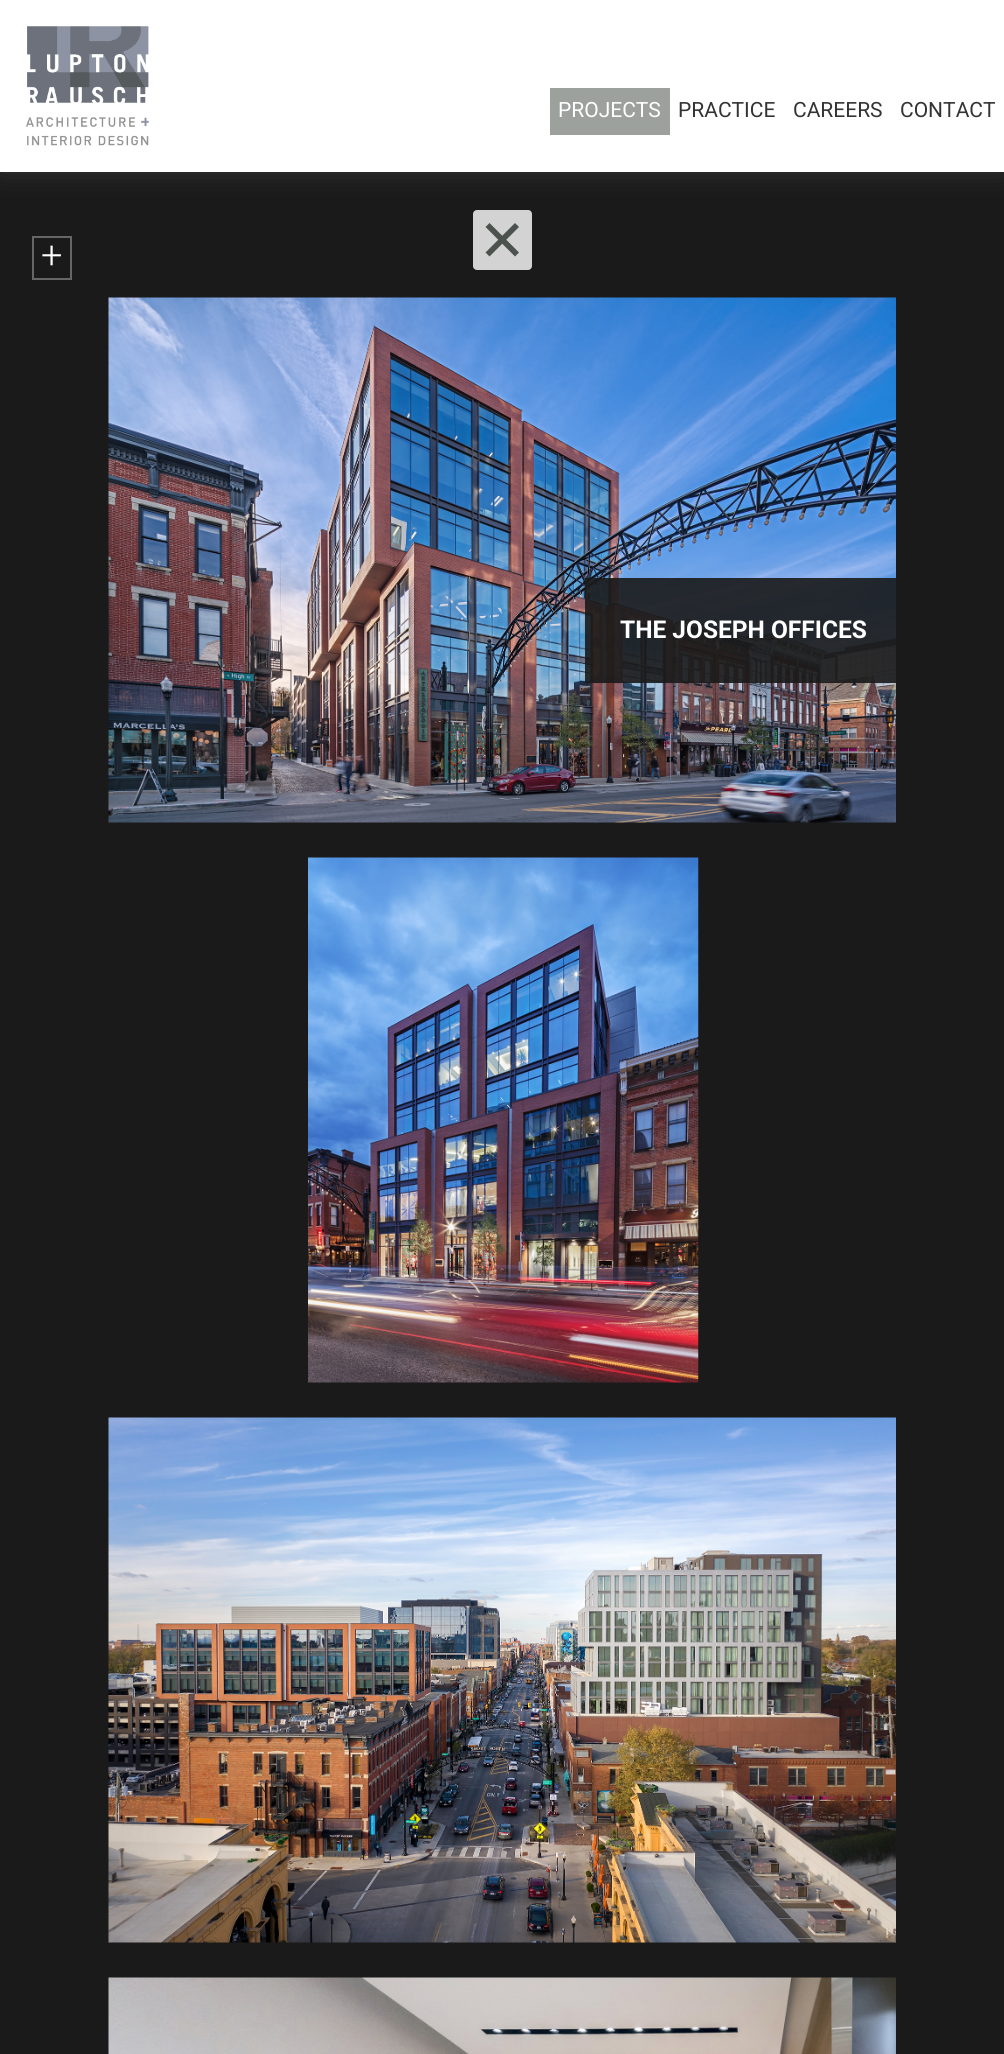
import math
import cairocffi as cairo

surface = cairo.ImageSurface(cairo.FORMAT_RGB24, 1004, 2054)
cr = cairo.Context(surface)
options = cairo.FontOptions()
options.set_hint_metrics(cairo.HINT_METRICS_OFF)
options.set_hint_style(cairo.HINT_STYLE_NONE)
cr.set_font_options(options)
cr.set_miter_limit(4)


def use_color(code):
    cr.set_source_rgb(*(v / 255 for v in bytes.fromhex(code[-6:])))


def round_rect(x, y, w, h, r):
    cr.new_sub_path()
    for i, (u, v) in enumerate([(x + w - r, y + h - r), (x + r, y + h - r), (x + r, y + r), (x + w - r, y + r)]):
        cr.arc(u, v, r, i * math.pi / 2, (i + 1) * math.pi / 2)
    cr.close_path()


def shadow(x, y, w, h, r, blur, alpha):
    cr.push_group_with_content(cairo.CONTENT_ALPHA)
    cr.set_operator(cairo.OPERATOR_SOURCE)
    for i in range(15, -16, -2):
        e = blur * i / 6
        if min(w, h) + 2 * e > 0:
            cr.set_source_rgba(0, 0, 0, alpha * math.erfc((i - 1) / 8.5) / 2)
            round_rect(x - e, y - e, w + 2 * e, h + 2 * e, max(0, min(r + e + blur * .6, min(w, h) / 2 + e)))
            cr.fill()
    cr.mask(cr.pop_group())


def picture(path, x, y, w, h):
    cr.save()
    cr.set_source_surface(cairo.ImageSurface.create_from_png(path), x, y)
    cr.rectangle(x, y, w, h)
    cr.fill()
    cr.restore()


use_color("#1a1a1a")
cr.paint()
use_color("#d3d3d3")
round_rect(473, 210, 59, 60, 4)
cr.fill()
use_color("#333333")
shadow(0, 0, 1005, 172, 0, 13, 1)
use_color("#ffffff")
cr.rectangle(0, 0, 1004, 172)
cr.fill()
picture("img1.png", 26, 26, 123, 120)
use_color("#9ca19e")
cr.rectangle(550, 88, 120, 47)
cr.fill()
cr.select_font_face("Roboto")
cr.set_font_size(21)
use_color("#ffffff")
cr.move_to(558, 117)
cr.show_text("PROJECTS")
use_color("#333333")
cr.move_to(678, 117)
cr.show_text("PRACTICE")
cr.move_to(793, 117)
cr.show_text("CAREERS")
cr.move_to(900, 117)
cr.show_text("CONTACT")
cr.rectangle(33, 237, 38, 42)
use_color("#666666")
cr.stroke()
cr.select_font_face("Roboto Light")
cr.set_font_size(38)
use_color("#ffffff")
cr.move_to(41, 268)
cr.show_text("+")
use_color("#4c524d")
cr.new_path()
cr.move_to(489.5, 223)
cr.line_to(519, 252.5)
cr.line_to(515, 256.5)
cr.line_to(485.5, 227)
cr.close_path()
cr.fill()
cr.new_path()
cr.move_to(485.5, 252.5)
cr.line_to(515, 223)
cr.line_to(519, 227)
cr.line_to(489.5, 256.5)
cr.close_path()
cr.fill()
picture("img2.png", 108, 297, 788, 526)
cr.set_source_rgba(0.102, 0.102, 0.102, 0.9)
cr.rectangle(585, 578, 311, 105)
cr.fill()
cr.select_font_face("Roboto", cairo.FONT_SLANT_NORMAL, cairo.FONT_WEIGHT_BOLD)
cr.set_font_size(24.5)
use_color("#ffffff")
cr.move_to(620, 638)
cr.show_text("THE JOSEPH OFFICES")
picture("img3.png", 308, 857, 391, 526)
picture("img4.png", 108, 1417, 788, 526)
picture("img5.png", 108, 1977, 788, 77)
surface.write_to_png("result.png")
